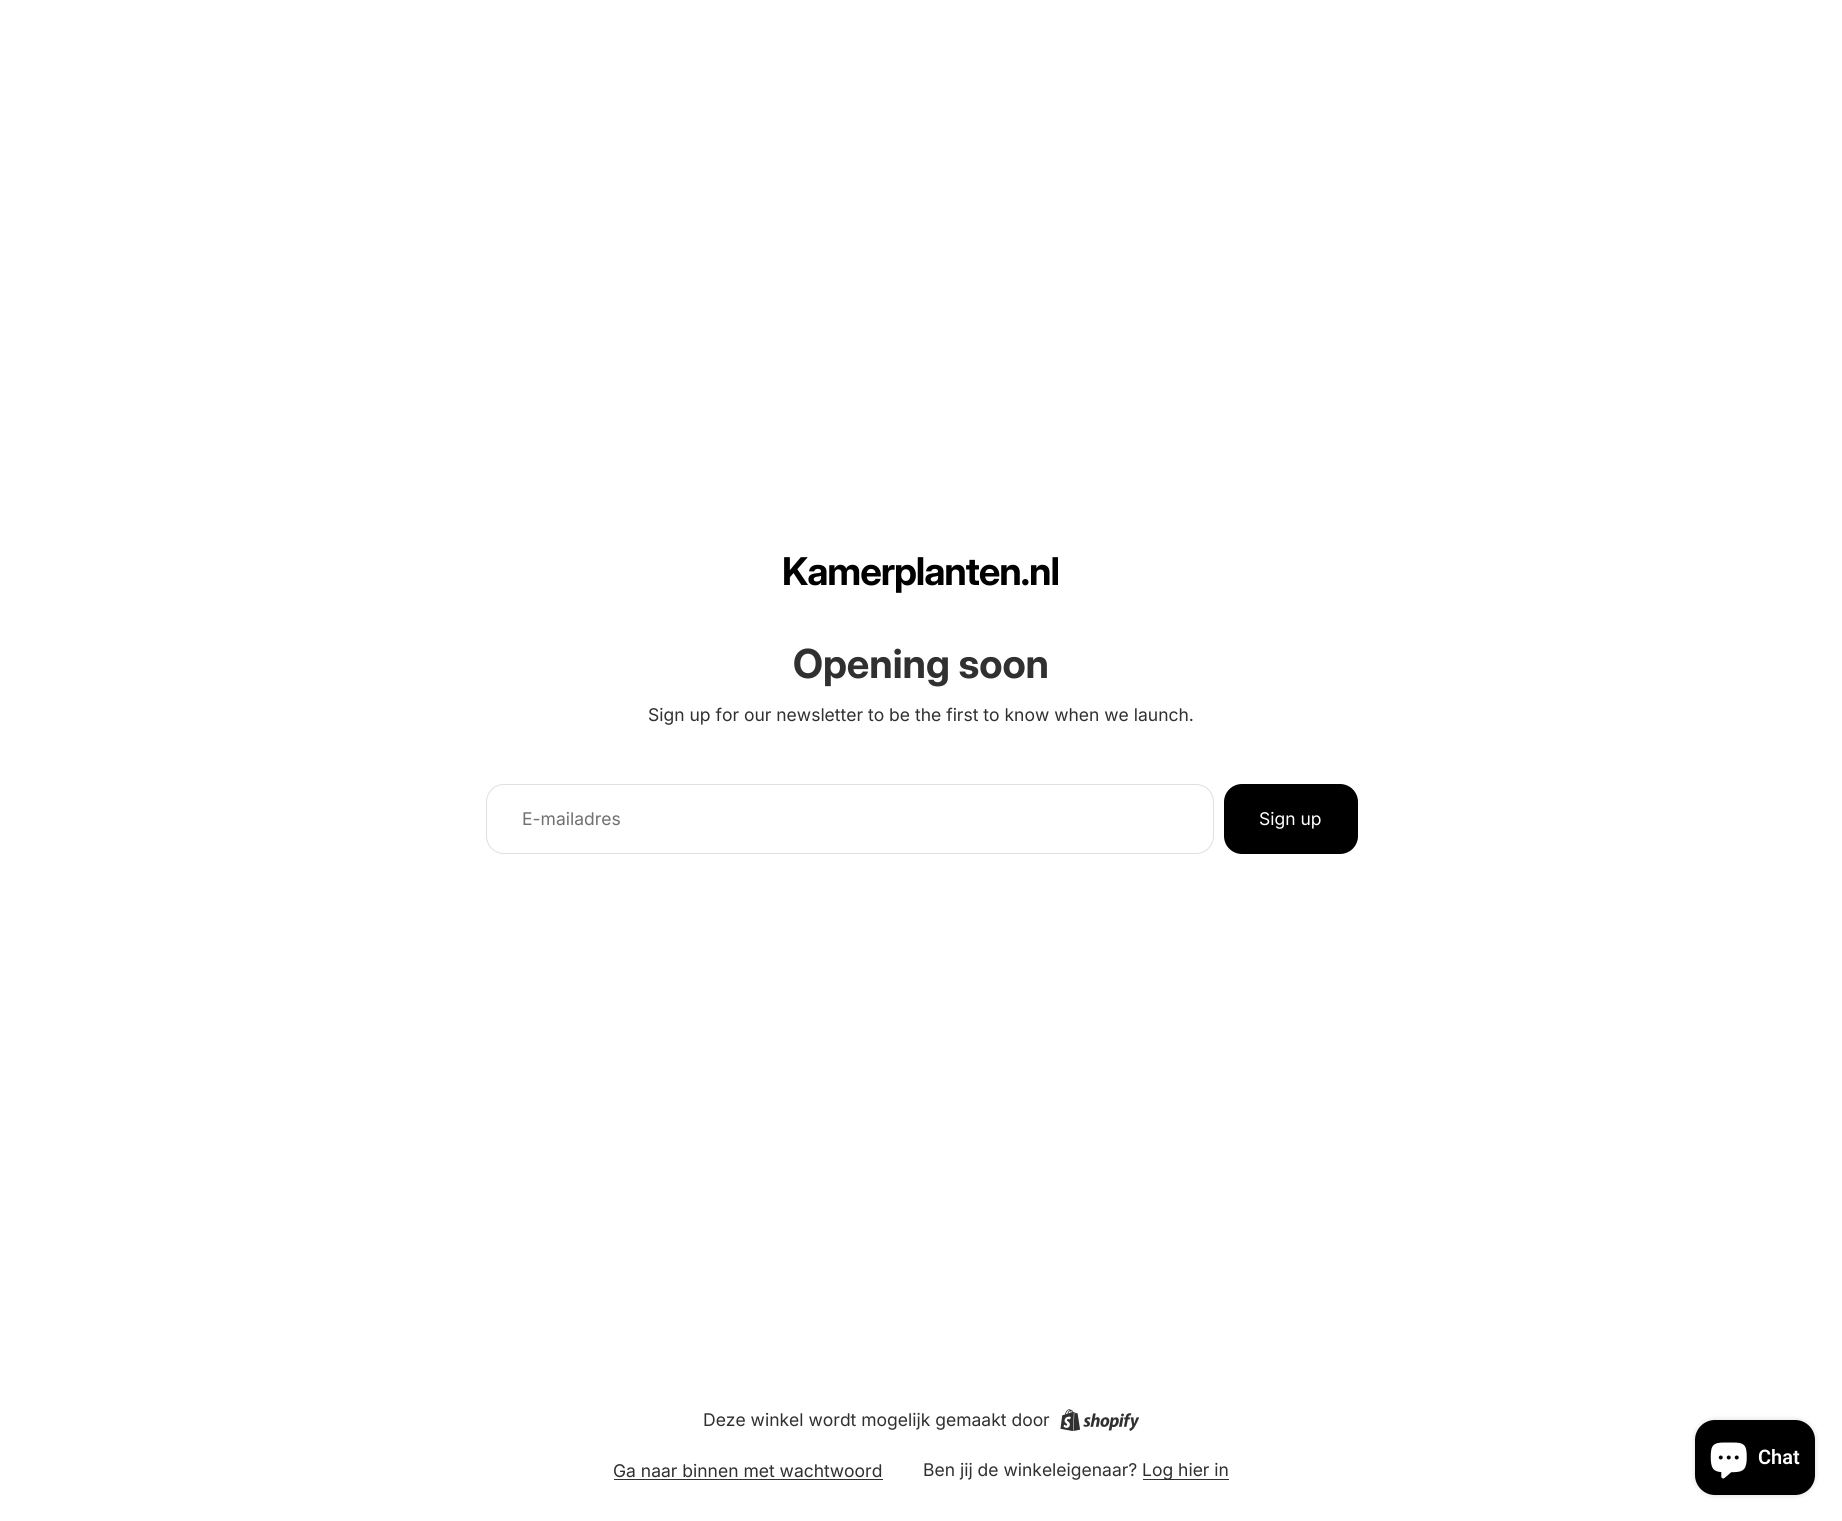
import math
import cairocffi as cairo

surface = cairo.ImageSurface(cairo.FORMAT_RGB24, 1842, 1521)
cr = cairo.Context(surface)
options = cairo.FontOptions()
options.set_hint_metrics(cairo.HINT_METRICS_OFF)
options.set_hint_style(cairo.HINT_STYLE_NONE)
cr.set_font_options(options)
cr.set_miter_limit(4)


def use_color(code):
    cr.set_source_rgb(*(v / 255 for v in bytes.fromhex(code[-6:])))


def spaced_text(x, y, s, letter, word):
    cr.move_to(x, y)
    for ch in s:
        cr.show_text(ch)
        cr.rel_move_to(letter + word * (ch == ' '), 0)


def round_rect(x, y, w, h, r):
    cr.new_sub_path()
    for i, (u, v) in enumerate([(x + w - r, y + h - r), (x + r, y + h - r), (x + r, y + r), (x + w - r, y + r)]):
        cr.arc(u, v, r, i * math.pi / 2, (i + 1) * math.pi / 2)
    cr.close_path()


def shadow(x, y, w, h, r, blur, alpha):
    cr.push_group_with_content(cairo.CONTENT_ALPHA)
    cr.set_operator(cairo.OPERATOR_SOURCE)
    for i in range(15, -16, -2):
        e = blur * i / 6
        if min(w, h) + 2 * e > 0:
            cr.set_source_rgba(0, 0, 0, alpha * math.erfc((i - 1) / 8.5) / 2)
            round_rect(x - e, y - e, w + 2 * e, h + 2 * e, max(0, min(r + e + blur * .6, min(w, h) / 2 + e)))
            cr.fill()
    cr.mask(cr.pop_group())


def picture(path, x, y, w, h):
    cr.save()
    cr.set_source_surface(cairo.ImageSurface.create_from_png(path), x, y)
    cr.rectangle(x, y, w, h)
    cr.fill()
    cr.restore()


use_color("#ffffff")
cr.paint()
cr.select_font_face("Inter", cairo.FONT_SLANT_NORMAL, cairo.FONT_WEIGHT_BOLD)
cr.set_font_size(38.25)
use_color("#000000")
spaced_text(782, 585, "Kamerplanten.nl", -1.1, 0)
cr.select_font_face("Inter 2", cairo.FONT_SLANT_NORMAL, cairo.FONT_WEIGHT_BOLD)
cr.set_font_size(40)
use_color("#303030")
cr.move_to(793, 678)
cr.show_text("Opening soon")
cr.select_font_face("Inter")
cr.set_font_size(17.5)
cr.move_to(648, 721)
cr.show_text("Sign up for our newsletter to be the first to know when we launch.")
round_rect(486.5, 784.5, 727, 69, 17.5)
use_color("#dfdfdf")
cr.set_line_width(1)
cr.stroke()
use_color("#707070")
cr.move_to(522, 825)
cr.show_text("E-mailadres")
use_color("#000000")
round_rect(1224, 784, 134, 70, 18)
cr.fill()
use_color("#ffffff")
cr.move_to(1259, 825)
cr.show_text("Sign up")
use_color("#303030")
cr.move_to(703, 1426)
cr.show_text("Deze winkel wordt mogelijk gemaakt door")
picture("img1.png", 1060, 1409, 79, 22)
cr.move_to(613, 1477)
cr.show_text("Ga naar binnen met wachtwoord")
cr.rectangle(614, 1479, 269, 1)
cr.fill()
cr.move_to(923, 1476)
cr.show_text("Ben jij de winkeleigenaar?")
cr.rectangle(1143, 1479, 86, 1)
cr.fill()
cr.move_to(1142, 1476)
cr.show_text("Log hier in")
use_color("#000000")
shadow(1695, 1420, 120, 75, 20, 3, 0.15)
use_color("#000000")
round_rect(1695, 1420, 120, 75, 20)
cr.fill()
picture("img2.png", 1710, 1442, 37, 37)
cr.select_font_face("Roboto SemiBold")
cr.set_font_size(20)
use_color("#ffffff")
cr.move_to(1758, 1464)
cr.show_text("Chat")
surface.write_to_png("result.png")
